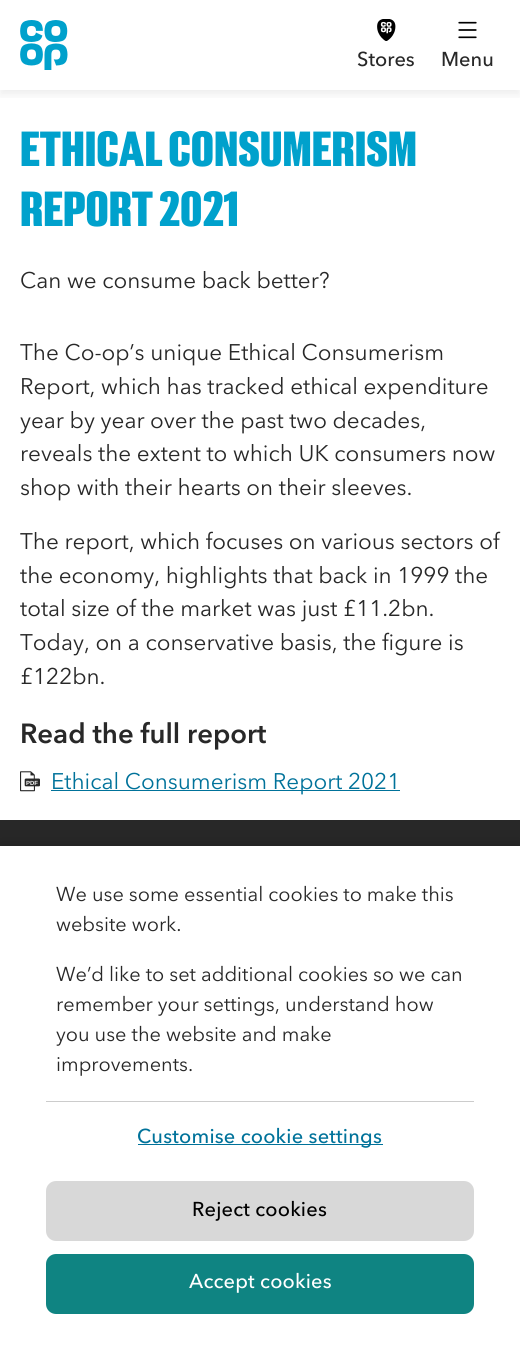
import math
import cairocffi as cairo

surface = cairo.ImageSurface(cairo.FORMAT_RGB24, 520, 1345)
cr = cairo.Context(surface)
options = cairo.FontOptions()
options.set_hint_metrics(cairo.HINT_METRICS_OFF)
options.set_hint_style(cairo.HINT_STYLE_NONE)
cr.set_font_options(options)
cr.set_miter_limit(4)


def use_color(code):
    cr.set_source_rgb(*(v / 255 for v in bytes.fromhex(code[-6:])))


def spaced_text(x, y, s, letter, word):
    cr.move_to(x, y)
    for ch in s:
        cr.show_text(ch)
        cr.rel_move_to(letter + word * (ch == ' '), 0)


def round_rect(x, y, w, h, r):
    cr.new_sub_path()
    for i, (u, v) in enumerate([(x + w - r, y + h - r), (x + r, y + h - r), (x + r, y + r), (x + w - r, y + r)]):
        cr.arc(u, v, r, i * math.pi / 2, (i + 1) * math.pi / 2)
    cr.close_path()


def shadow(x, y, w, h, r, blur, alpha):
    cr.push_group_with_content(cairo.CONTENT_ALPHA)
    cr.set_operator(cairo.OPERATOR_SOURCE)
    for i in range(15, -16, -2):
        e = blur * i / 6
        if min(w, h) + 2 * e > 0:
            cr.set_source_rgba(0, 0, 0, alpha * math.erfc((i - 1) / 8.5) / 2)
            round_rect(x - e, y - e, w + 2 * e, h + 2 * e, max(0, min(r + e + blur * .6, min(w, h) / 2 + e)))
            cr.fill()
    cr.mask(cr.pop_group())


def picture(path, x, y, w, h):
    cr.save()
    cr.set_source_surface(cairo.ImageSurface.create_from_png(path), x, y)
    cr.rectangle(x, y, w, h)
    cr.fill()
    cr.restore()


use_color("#ffffff")
cr.paint()
cr.save()
cr.rectangle(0, 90, 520, 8)
cr.clip()
use_color("#000000")
shadow(0, 5, 520, 90, 0, 5, 0.07)
cr.restore()
picture("img1.png", 20, 20, 48, 50)
picture("img2.png", 377, 19, 19, 22)
cr.select_font_face("Avenir Next Medium")
cr.set_font_size(20)
use_color("#282828")
cr.move_to(357, 66)
cr.show_text("Stores")
picture("img3.png", 458, 21, 19, 18)
cr.move_to(441, 66)
cr.show_text("Menu")
cr.select_font_face("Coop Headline", cairo.FONT_SLANT_NORMAL, cairo.FONT_WEIGHT_BOLD)
cr.set_font_size(45)
use_color("#00a1cc")
cr.move_to(20, 166)
cr.show_text("ETHICAL CONSUMERISM")
cr.move_to(20, 226)
cr.show_text("REPORT 2021")
cr.select_font_face("Avenir Next")
cr.set_font_size(22.5)
use_color("#282828")
cr.move_to(20, 288)
cr.show_text("Can we consume back better?")
cr.move_to(20, 360)
cr.show_text("The Co-op’s unique Ethical Consumerism")
cr.move_to(20, 394)
cr.show_text("Report, which has tracked ethical expenditure")
cr.move_to(20, 428)
cr.show_text("year by year over the past two decades,")
cr.move_to(20, 461)
cr.show_text("reveals the extent to which UK consumers now")
cr.move_to(20, 495)
cr.show_text("shop with their hearts on their sleeves.")
cr.move_to(20, 549)
cr.show_text("The report, which focuses on various sectors of")
cr.move_to(20, 583)
cr.show_text("the economy, highlights that back in 1999 the")
cr.move_to(20, 616)
cr.show_text("total size of the market was just £11.2bn.")
cr.move_to(20, 650)
cr.show_text("Today, on a conservative basis, the figure is")
cr.move_to(20, 684)
cr.show_text("£122bn.")
cr.select_font_face("Avenir Next", cairo.FONT_SLANT_NORMAL, cairo.FONT_WEIGHT_BOLD)
cr.set_font_size(27.5)
cr.move_to(20, 743)
cr.show_text("Read the full report")
picture("img4.png", 20, 771, 20, 21)
use_color("#00729a")
cr.rectangle(51, 790, 349, 1)
cr.fill()
cr.select_font_face("Avenir Next")
cr.set_font_size(22.5)
cr.move_to(51, 789)
cr.show_text("Ethical Consumerism Report 2021")
cr.select_font_face("Liberation Sans", cairo.FONT_SLANT_NORMAL, cairo.FONT_WEIGHT_BOLD)
cr.set_font_size(6)
use_color("#ffffff")
cr.move_to(26, 785)
cr.show_text("PDF")
use_color("#282828")
cr.rectangle(0, 820, 520, 26)
cr.fill()
use_color("#000000")
shadow(0, 846, 520, 499, 0, 11, 0.2)
use_color("#ffffff")
cr.rectangle(0, 846, 520, 499)
cr.fill()
use_color("#cccccc")
cr.rectangle(46, 1101, 428, 1)
cr.fill()
cr.select_font_face("Avenir Next")
cr.set_font_size(20)
use_color("#282828")
cr.move_to(56, 901)
cr.show_text("We use some essential cookies to make this")
cr.move_to(56, 931)
cr.show_text("website work.")
cr.move_to(56, 981)
cr.show_text("We’d like to set additional cookies so we can")
cr.move_to(56, 1011)
cr.show_text("remember your settings, understand how")
cr.move_to(56, 1041)
cr.show_text("you use the website and make")
cr.move_to(56, 1071)
cr.show_text("improvements.")
use_color("#00729a")
cr.rectangle(138, 1144, 245, 1)
cr.fill()
cr.select_font_face("Avenir Next Medium")
spaced_text(137, 1143, "Customise cookie settings", 0.2, 0)
use_color("#d8d8d8")
round_rect(46, 1181, 428, 60, 10)
cr.fill()
use_color("#000000")
spaced_text(192, 1216, "Reject cookies", 0.2, 0)
use_color("#0f8482")
round_rect(46, 1254, 428, 60, 10)
cr.fill()
use_color("#ffffff")
spaced_text(189, 1288, "Accept cookies", 0.2, 0)
surface.write_to_png("result.png")
